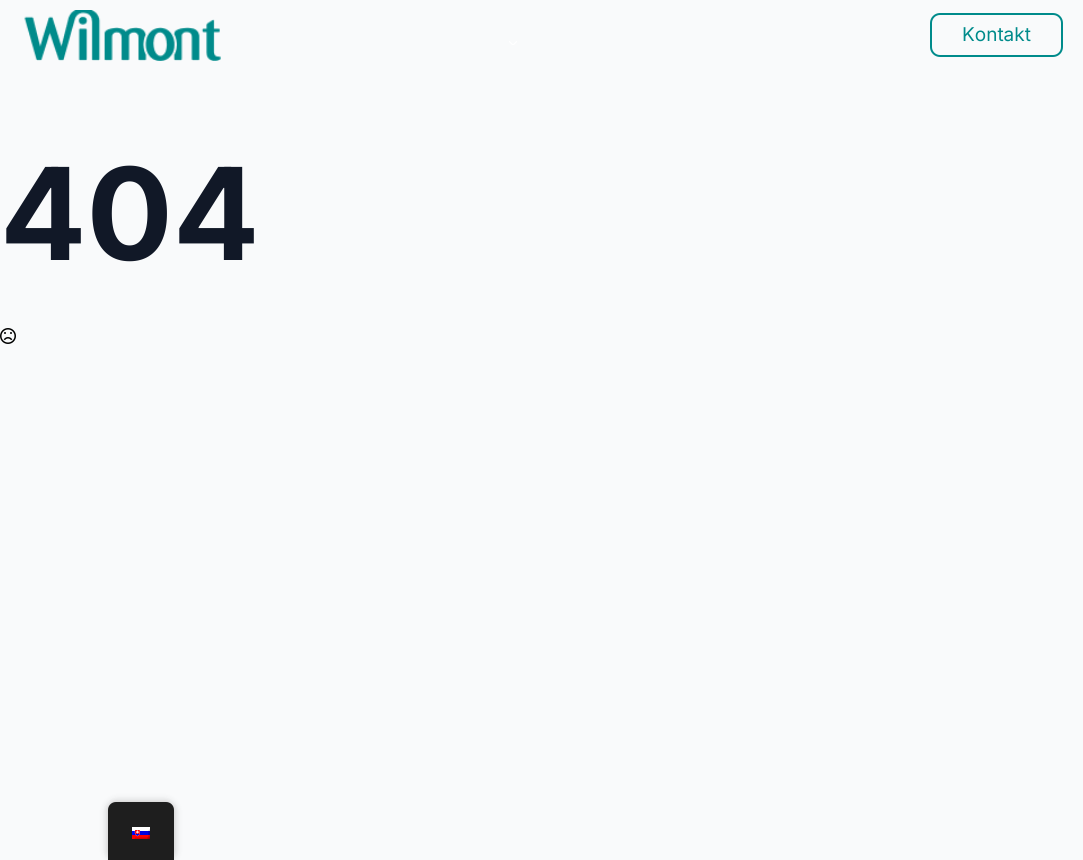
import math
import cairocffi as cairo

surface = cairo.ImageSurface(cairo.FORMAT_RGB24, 1083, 860)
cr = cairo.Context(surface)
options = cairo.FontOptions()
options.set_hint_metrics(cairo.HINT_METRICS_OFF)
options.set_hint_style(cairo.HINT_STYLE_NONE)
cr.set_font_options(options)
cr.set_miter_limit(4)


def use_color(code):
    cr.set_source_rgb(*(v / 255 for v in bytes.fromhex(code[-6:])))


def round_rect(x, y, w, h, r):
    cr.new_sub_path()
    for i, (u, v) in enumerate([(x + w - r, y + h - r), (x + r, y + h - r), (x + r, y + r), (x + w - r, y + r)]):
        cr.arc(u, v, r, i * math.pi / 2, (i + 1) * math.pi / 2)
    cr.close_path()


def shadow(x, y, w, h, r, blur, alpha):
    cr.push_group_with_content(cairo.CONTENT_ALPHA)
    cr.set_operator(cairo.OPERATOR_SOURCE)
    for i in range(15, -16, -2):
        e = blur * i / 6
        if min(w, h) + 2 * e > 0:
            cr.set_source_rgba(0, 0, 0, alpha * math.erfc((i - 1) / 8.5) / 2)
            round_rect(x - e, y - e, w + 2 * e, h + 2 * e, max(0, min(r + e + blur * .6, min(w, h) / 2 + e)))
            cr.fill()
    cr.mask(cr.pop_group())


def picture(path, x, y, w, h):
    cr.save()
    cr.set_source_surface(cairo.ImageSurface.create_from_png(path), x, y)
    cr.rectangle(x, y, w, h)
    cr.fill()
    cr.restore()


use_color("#f9fafb")
cr.paint()
picture("img1.png", 24, 10, 197, 51)
round_rect(931, 14, 131, 42, 9)
use_color("#008b8b")
cr.stroke()
cr.select_font_face("Inter")
cr.set_font_size(19)
cr.move_to(962, 41)
cr.show_text("Kontakt")
picture("img2.png", 509, 41, 8, 4)
cr.select_font_face("Inter", cairo.FONT_SLANT_NORMAL, cairo.FONT_WEIGHT_BOLD)
cr.set_font_size(128)
use_color("#111827")
cr.move_to(0, 260)
cr.show_text("404")
picture("img3.png", 0, 328, 16, 16)
use_color("#000000")
shadow(108, 802, 66, 58, 8, 4, 0.25)
use_color("#1e1e1e")
cr.new_path()
cr.move_to(116, 802)
cr.line_to(166, 802)
cr.curve_to(170.5, 802, 174, 805.5, 174, 810)
cr.line_to(174, 860)
cr.line_to(108, 860)
cr.line_to(108, 810)
cr.curve_to(108, 805.5, 111.5, 802, 116, 802)
cr.close_path()
cr.fill()
picture("img4.png", 132, 827, 18, 12)
surface.write_to_png("result.png")
